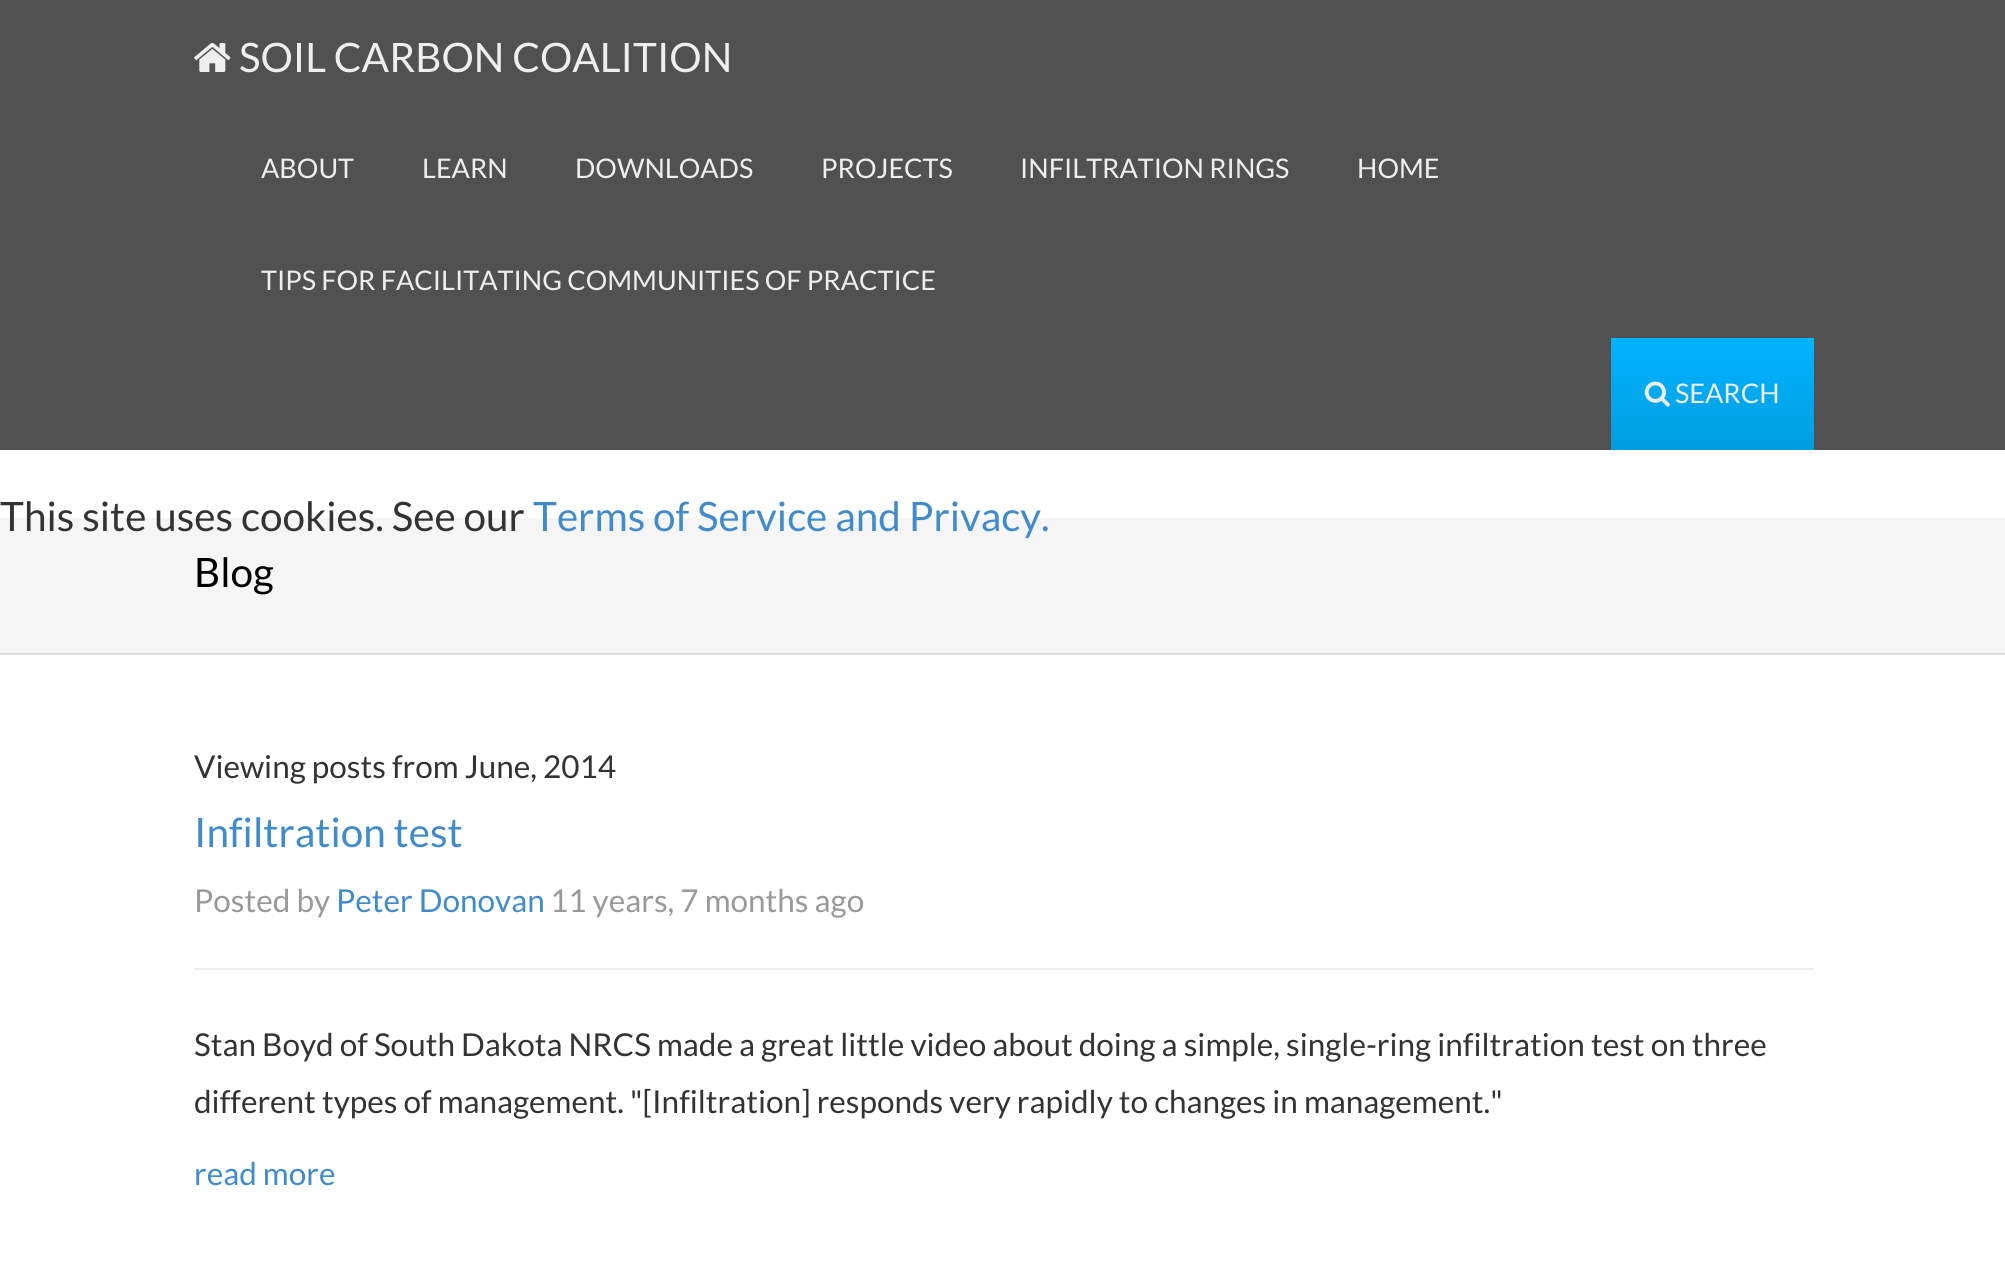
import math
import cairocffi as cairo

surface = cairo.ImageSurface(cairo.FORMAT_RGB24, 2005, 1263)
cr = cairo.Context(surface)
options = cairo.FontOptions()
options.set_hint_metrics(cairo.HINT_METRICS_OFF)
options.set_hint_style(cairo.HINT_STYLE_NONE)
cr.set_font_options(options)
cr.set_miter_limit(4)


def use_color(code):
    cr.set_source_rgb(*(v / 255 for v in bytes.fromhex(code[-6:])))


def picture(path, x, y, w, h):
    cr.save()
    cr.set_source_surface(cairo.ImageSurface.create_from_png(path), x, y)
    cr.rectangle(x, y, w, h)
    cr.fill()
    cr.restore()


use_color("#ffffff")
cr.paint()
use_color("#515151")
cr.rectangle(0, 0, 2005, 450)
cr.fill()
picture("img1.png", 194, 43, 37, 29)
cr.select_font_face("Lato")
cr.set_font_size(40.5)
use_color("#eeeeee")
cr.move_to(239, 72)
cr.show_text("SOIL CARBON COALITION")
cr.set_font_size(27)
cr.move_to(261, 178)
cr.show_text("ABOUT")
cr.move_to(422, 178)
cr.show_text("LEARN")
cr.move_to(575, 178)
cr.show_text("DOWNLOADS")
cr.move_to(821, 178)
cr.show_text("PROJECTS")
cr.move_to(1020, 178)
cr.show_text("INFILTRATION RINGS")
cr.move_to(1357, 178)
cr.show_text("HOME")
cr.move_to(261, 290)
cr.show_text("TIPS FOR FACILITATING COMMUNITIES OF PRACTICE")
gradient = cairo.LinearGradient(1712, 338, 1712, 450)
gradient.add_color_stop_rgba(0, 0, 0.706, 1, 1)
gradient.add_color_stop_rgba(1, 0, 0.616, 0.878, 1)
cr.set_source(gradient)
cr.rectangle(1611, 338, 203, 112)
cr.fill()
picture("img2.png", 1644, 381, 26, 26)
use_color("#eeeeee")
cr.move_to(1675, 403)
cr.show_text("SEARCH")
use_color("#f5f5f5")
cr.rectangle(0, 518, 2005, 135)
cr.fill()
cr.set_font_size(40.5)
use_color("#333333")
cr.move_to(0, 531)
cr.show_text("This site uses cookies. See our")
use_color("#428bca")
cr.move_to(533, 531)
cr.show_text("Terms of Service and Privacy.")
use_color("#dedede")
cr.rectangle(0, 653, 2005, 2)
cr.fill()
use_color("#000000")
cr.move_to(194, 587)
cr.show_text("Blog")
cr.set_font_size(31.5)
use_color("#333333")
cr.move_to(194, 778)
cr.show_text("Viewing posts from June, 2014")
cr.set_font_size(40.5)
use_color("#428bca")
cr.move_to(194, 847)
cr.show_text("Infiltration test")
cr.set_font_size(31.5)
use_color("#999999")
cr.move_to(194, 912)
cr.show_text("Posted by")
use_color("#428bca")
cr.move_to(336, 912)
cr.show_text("Peter Donovan")
use_color("#999999")
cr.move_to(550, 912)
cr.show_text("11 years, 7 months ago")
use_color("#eeeeee")
cr.rectangle(194, 968, 1620, 2)
cr.fill()
use_color("#333333")
cr.move_to(194, 1056)
cr.show_text("Stan Boyd of South Dakota NRCS made a great little video about doing a simple, single-ring infiltration test on three")
cr.move_to(194, 1113)
cr.show_text("different types of management. \"[Infiltration] responds very rapidly to changes in management.\"")
use_color("#428bca")
cr.move_to(194, 1185)
cr.show_text("read more")
surface.write_to_png("result.png")
